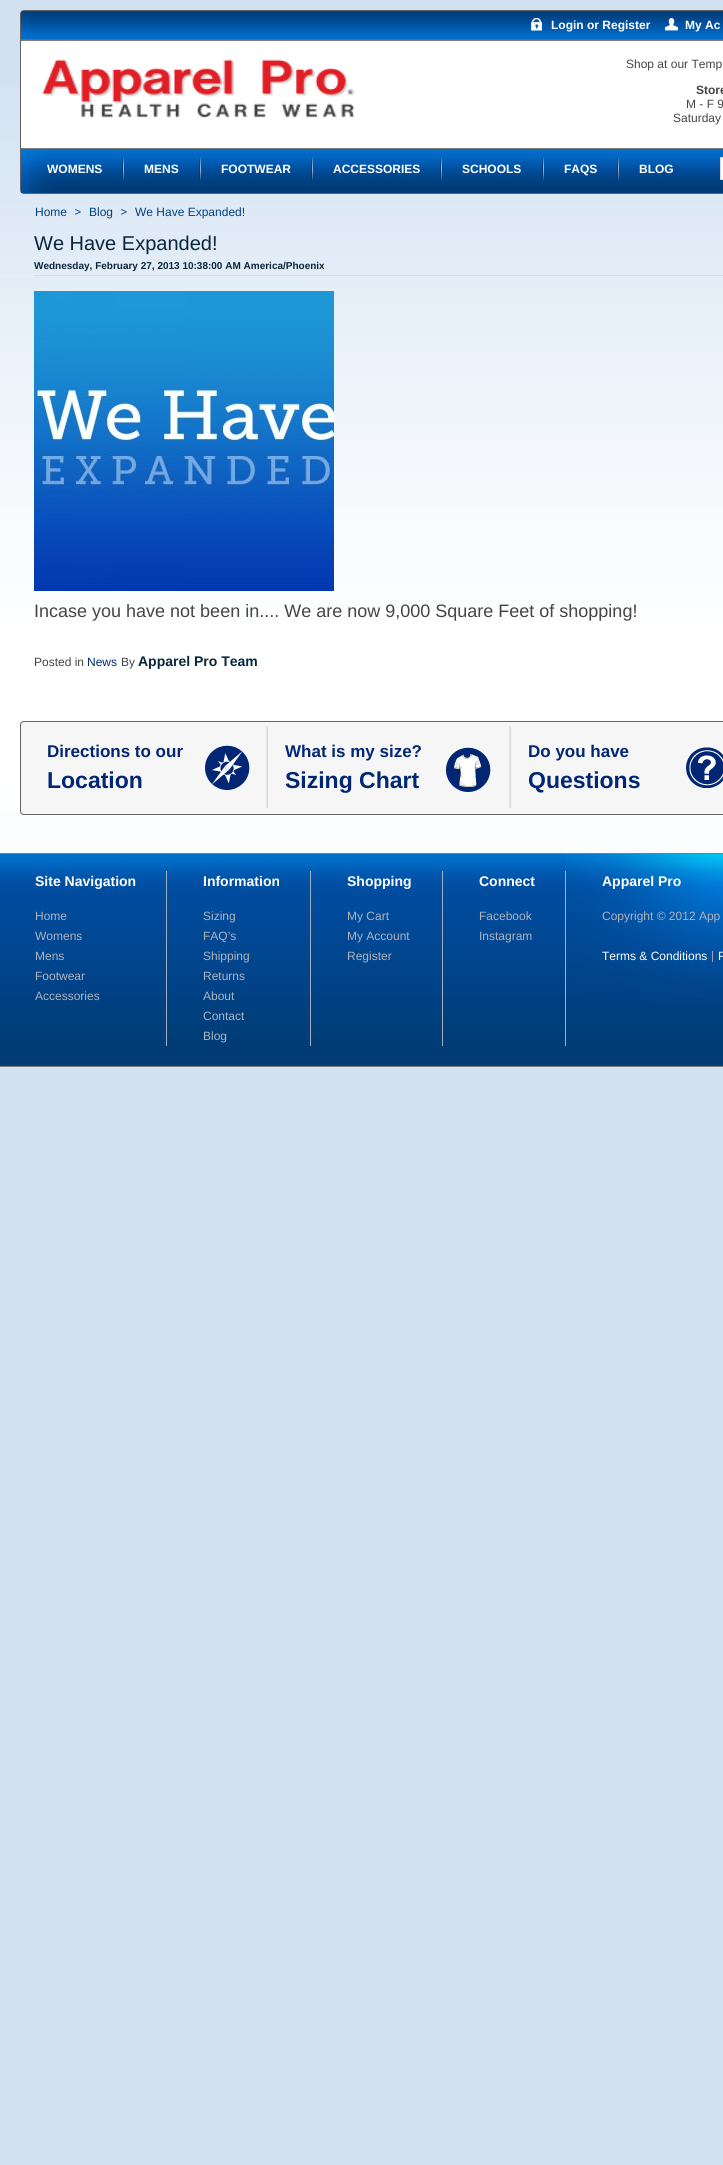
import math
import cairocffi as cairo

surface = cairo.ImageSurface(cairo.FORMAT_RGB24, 723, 2165)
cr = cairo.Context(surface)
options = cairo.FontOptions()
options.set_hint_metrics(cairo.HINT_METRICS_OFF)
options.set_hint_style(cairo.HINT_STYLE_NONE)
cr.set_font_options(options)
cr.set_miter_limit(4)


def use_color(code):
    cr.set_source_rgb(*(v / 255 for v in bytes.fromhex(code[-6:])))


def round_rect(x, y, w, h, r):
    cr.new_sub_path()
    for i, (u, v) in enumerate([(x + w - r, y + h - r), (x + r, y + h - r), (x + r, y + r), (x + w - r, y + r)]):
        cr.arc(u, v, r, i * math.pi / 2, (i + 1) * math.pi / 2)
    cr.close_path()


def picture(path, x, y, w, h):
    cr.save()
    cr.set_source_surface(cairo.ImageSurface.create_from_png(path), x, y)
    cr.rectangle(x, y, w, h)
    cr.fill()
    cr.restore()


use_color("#d1e1f2")
cr.paint()
picture("img1.png", 0, 87, 723, 766)
use_color("#ffffff")
round_rect(20.5, 10.5, 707, 183, 3.5)
cr.fill_preserve()
use_color("#636363")
cr.set_line_width(1)
cr.stroke()
picture("img2.png", 21, 11, 702, 29)
picture("img3.png", 531, 18, 11, 13)
cr.select_font_face("Liberation Sans", cairo.FONT_SLANT_NORMAL, cairo.FONT_WEIGHT_BOLD)
cr.set_font_size(12)
use_color("#ffffff")
cr.move_to(551, 29)
cr.show_text("Login or Register")
picture("img4.png", 665, 18, 13, 13)
cr.move_to(685, 29)
cr.show_text("My Ac")
use_color("#7d7d7d")
cr.rectangle(21, 40, 702, 1)
cr.fill()
cr.rectangle(21, 148, 702, 1)
cr.fill()
picture("img5.png", 42, 59, 313, 59)
cr.select_font_face("Liberation Sans")
use_color("#454545")
cr.move_to(626, 68)
cr.show_text("Shop at our Temp")
cr.select_font_face("Liberation Sans", cairo.FONT_SLANT_NORMAL, cairo.FONT_WEIGHT_BOLD)
cr.move_to(696, 94)
cr.show_text("Store")
cr.select_font_face("Liberation Sans")
cr.move_to(686, 108)
cr.show_text("M - F 9")
cr.move_to(673, 122)
cr.show_text("Saturday")
picture("img6.png", 21, 149, 702, 44)
cr.select_font_face("Liberation Sans", cairo.FONT_SLANT_NORMAL, cairo.FONT_WEIGHT_BOLD)
use_color("#ffffff")
cr.move_to(47, 173)
cr.show_text("WOMENS")
picture("img7.png", 122, 157, 2, 24)
cr.move_to(144, 173)
cr.show_text("MENS")
picture("img7.png", 199, 157, 2, 24)
cr.move_to(221, 173)
cr.show_text("FOOTWEAR")
picture("img7.png", 311, 157, 2, 24)
cr.move_to(333, 173)
cr.show_text("ACCESSORIES")
picture("img7.png", 440, 157, 2, 24)
cr.move_to(462, 173)
cr.show_text("SCHOOLS")
picture("img7.png", 542, 157, 2, 24)
cr.move_to(564, 173)
cr.show_text("FAQS")
picture("img7.png", 617, 157, 2, 24)
cr.move_to(639, 173)
cr.show_text("BLOG")
cr.rectangle(720.5, 157.5, 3, 22)
use_color("#d9d9d9")
cr.stroke()
use_color("#ffffff")
cr.rectangle(721, 158, 2, 21)
cr.fill()
cr.select_font_face("Liberation Sans")
use_color("#004181")
cr.move_to(35, 216)
cr.show_text("Home")
picture("img8.png", 75, 209, 6, 6)
cr.move_to(89, 216)
cr.show_text("Blog")
picture("img8.png", 121, 209, 6, 6)
cr.move_to(135, 216)
cr.show_text("We Have Expanded!")
use_color("#dddddd")
cr.rectangle(34, 275, 689, 1)
cr.fill()
cr.set_font_size(20)
use_color("#0a263c")
cr.move_to(34, 250)
cr.show_text("We Have Expanded!")
cr.select_font_face("Liberation Sans", cairo.FONT_SLANT_NORMAL, cairo.FONT_WEIGHT_BOLD)
cr.set_font_size(10)
cr.move_to(34, 269)
cr.show_text("Wednesday, February 27, 2013 10:38:00 AM America/Phoenix")
picture("img9.png", 34, 291, 300, 300)
cr.select_font_face("Liberation Sans")
cr.set_font_size(18)
use_color("#454545")
cr.move_to(34, 617)
cr.show_text("Incase you have not been in.... We are now 9,000 Square Feet of shopping!")
cr.set_font_size(12)
cr.move_to(34, 666)
cr.show_text("Posted in")
use_color("#012774")
cr.move_to(87, 666)
cr.show_text("News")
use_color("#454545")
cr.move_to(121, 666)
cr.show_text("By")
cr.select_font_face("Liberation Sans", cairo.FONT_SLANT_NORMAL, cairo.FONT_WEIGHT_BOLD)
cr.set_font_size(14)
use_color("#0a263c")
cr.move_to(138, 666)
cr.show_text("Apparel Pro Team")
use_color("#f6f6f6")
round_rect(20.5, 721.5, 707, 93, 3.5)
cr.fill_preserve()
use_color("#636363")
cr.stroke()
picture("img10.png", 205, 745, 45, 45)
cr.set_font_size(17)
use_color("#012774")
cr.move_to(47, 757)
cr.show_text("Directions to our")
cr.set_font_size(23)
cr.move_to(47, 788)
cr.show_text("Location")
picture("img11.png", 266, 726, 2, 82)
picture("img12.png", 446, 747, 45, 45)
cr.set_font_size(17)
cr.move_to(285, 757)
cr.show_text("What is my size?")
cr.set_font_size(23)
cr.move_to(285, 788)
cr.show_text("Sizing Chart")
picture("img11.png", 509, 726, 2, 82)
picture("img13.png", 686, 747, 37, 41)
cr.set_font_size(17)
cr.move_to(528, 757)
cr.show_text("Do you have")
cr.set_font_size(23)
cr.move_to(528, 788)
cr.show_text("Questions")
picture("img14.png", 0, 854, 723, 212)
use_color("#7d7d7d")
cr.rectangle(0, 853, 723, 1)
cr.fill()
cr.rectangle(0, 1066, 723, 1)
cr.fill()
picture("img15.png", 565, 854, 158, 148)
cr.set_font_size(14)
use_color("#ffffff")
cr.move_to(35, 886)
cr.show_text("Site Navigation")
cr.select_font_face("Liberation Sans")
cr.set_font_size(12)
use_color("#afb3be")
cr.move_to(35, 920)
cr.show_text("Home")
cr.move_to(35, 940)
cr.show_text("Womens")
cr.move_to(35, 960)
cr.show_text("Mens")
cr.move_to(35, 980)
cr.show_text("Footwear")
cr.move_to(35, 1000)
cr.show_text("Accessories")
use_color("#9eb0c2")
cr.rectangle(166, 871, 1, 175)
cr.fill()
cr.select_font_face("Liberation Sans", cairo.FONT_SLANT_NORMAL, cairo.FONT_WEIGHT_BOLD)
cr.set_font_size(14)
use_color("#ffffff")
cr.move_to(203, 886)
cr.show_text("Information")
cr.select_font_face("Liberation Sans")
cr.set_font_size(12)
use_color("#afb3be")
cr.move_to(203, 920)
cr.show_text("Sizing")
cr.move_to(203, 940)
cr.show_text("FAQ’s")
cr.move_to(203, 960)
cr.show_text("Shipping")
cr.move_to(203, 980)
cr.show_text("Returns")
cr.move_to(203, 1000)
cr.show_text("About")
cr.move_to(203, 1020)
cr.show_text("Contact")
cr.move_to(203, 1040)
cr.show_text("Blog")
use_color("#9eb0c2")
cr.rectangle(310, 871, 1, 175)
cr.fill()
cr.select_font_face("Liberation Sans", cairo.FONT_SLANT_NORMAL, cairo.FONT_WEIGHT_BOLD)
cr.set_font_size(14)
use_color("#ffffff")
cr.move_to(347, 886)
cr.show_text("Shopping")
cr.select_font_face("Liberation Sans")
cr.set_font_size(12)
use_color("#afb3be")
cr.move_to(347, 920)
cr.show_text("My Cart")
cr.move_to(347, 940)
cr.show_text("My Account")
cr.move_to(347, 960)
cr.show_text("Register")
use_color("#9eb0c2")
cr.rectangle(442, 871, 1, 175)
cr.fill()
cr.select_font_face("Liberation Sans", cairo.FONT_SLANT_NORMAL, cairo.FONT_WEIGHT_BOLD)
cr.set_font_size(14)
use_color("#ffffff")
cr.move_to(479, 886)
cr.show_text("Connect")
cr.select_font_face("Liberation Sans")
cr.set_font_size(12)
use_color("#afb3be")
cr.move_to(479, 920)
cr.show_text("Facebook")
cr.move_to(479, 940)
cr.show_text("Instagram")
use_color("#9eb0c2")
cr.rectangle(565, 871, 1, 175)
cr.fill()
cr.select_font_face("Liberation Sans", cairo.FONT_SLANT_NORMAL, cairo.FONT_WEIGHT_BOLD)
cr.set_font_size(14)
use_color("#ffffff")
cr.move_to(602, 886)
cr.show_text("Apparel Pro")
cr.select_font_face("Liberation Sans")
cr.set_font_size(12)
use_color("#afb3be")
cr.move_to(602, 920)
cr.show_text("Copyright © 2012 App")
use_color("#ffffff")
cr.move_to(602, 960)
cr.show_text("Terms & Conditions")
use_color("#9ea3b0")
cr.rectangle(712, 951, 1, 11)
cr.fill()
use_color("#ffffff")
cr.move_to(718, 960)
cr.show_text("P")
surface.write_to_png("result.png")
